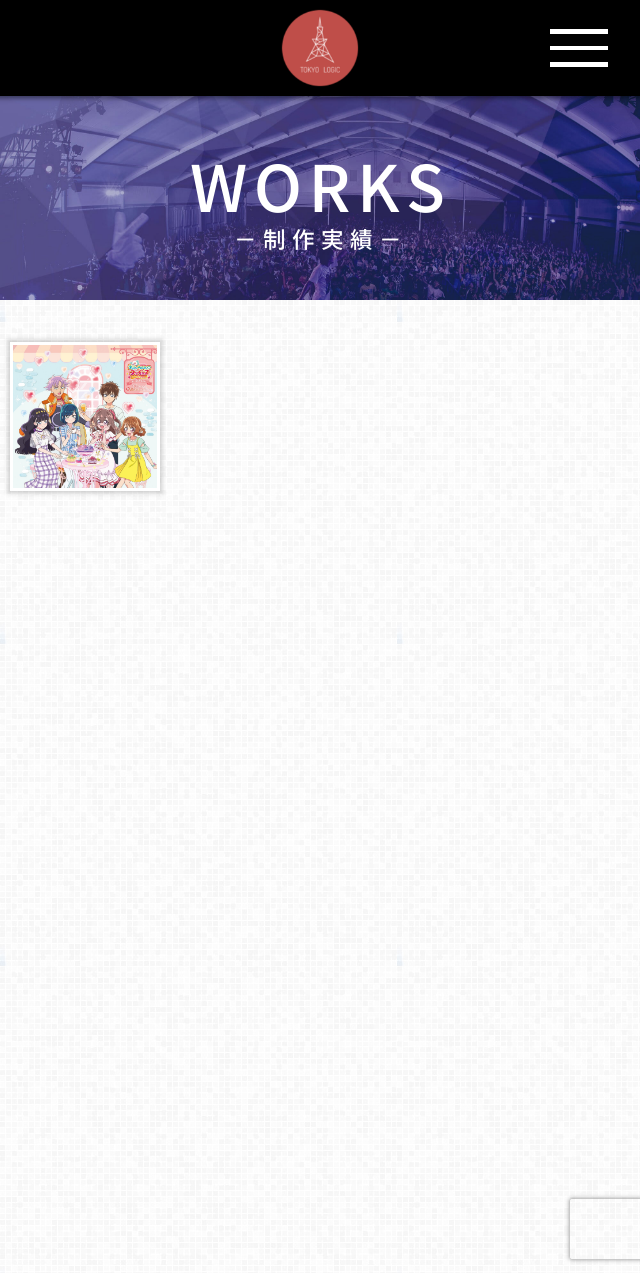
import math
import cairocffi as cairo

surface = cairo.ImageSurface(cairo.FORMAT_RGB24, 640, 1273)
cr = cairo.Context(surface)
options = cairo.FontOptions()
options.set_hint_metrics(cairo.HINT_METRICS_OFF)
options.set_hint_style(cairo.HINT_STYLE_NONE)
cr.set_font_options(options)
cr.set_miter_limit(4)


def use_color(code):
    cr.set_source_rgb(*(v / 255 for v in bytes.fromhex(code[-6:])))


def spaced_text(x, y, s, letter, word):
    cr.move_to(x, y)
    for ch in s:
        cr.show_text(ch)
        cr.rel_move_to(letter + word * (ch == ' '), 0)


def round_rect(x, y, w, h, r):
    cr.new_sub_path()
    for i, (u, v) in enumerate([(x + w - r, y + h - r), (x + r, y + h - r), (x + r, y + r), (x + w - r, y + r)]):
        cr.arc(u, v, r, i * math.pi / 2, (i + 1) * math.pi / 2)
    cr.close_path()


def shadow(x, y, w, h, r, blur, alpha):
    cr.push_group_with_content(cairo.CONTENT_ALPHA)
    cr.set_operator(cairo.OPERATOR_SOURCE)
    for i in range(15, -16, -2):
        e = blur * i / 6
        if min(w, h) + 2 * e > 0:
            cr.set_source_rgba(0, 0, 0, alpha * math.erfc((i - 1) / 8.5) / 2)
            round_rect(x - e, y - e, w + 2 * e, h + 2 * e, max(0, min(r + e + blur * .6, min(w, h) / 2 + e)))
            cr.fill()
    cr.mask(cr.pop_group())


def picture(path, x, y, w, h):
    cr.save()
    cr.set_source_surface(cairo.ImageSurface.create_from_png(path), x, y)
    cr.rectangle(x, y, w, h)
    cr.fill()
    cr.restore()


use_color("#ffffff")
cr.paint()
picture("img1.png", 0, 300, 640, 973)
picture("img3.png", 0, 96, 640, 204)
use_color("#000000")
shadow(-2, -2, 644, 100, 0, 2.5, 0.5)
use_color("#000000")
cr.rectangle(0, 0, 640, 96)
cr.fill()
picture("img2.png", 281, 9, 78, 78)
use_color("#ffffff")
cr.rectangle(550, 29, 58, 5)
cr.fill()
cr.rectangle(550, 46, 58, 4)
cr.fill()
cr.rectangle(550, 62, 58, 5)
cr.fill()
cr.select_font_face("Noto Sans JP Medium")
cr.set_font_size(64)
spaced_text(190, 212, "WORKS", 6.5, 0)
cr.set_font_size(22.5)
spaced_text(234, 248, "－制作実績－", 6.5, 0)
use_color("#000000")
shadow(8, 340, 154, 153, 0, 2.5, 0.2)
use_color("#ffffff")
cr.rectangle(10, 342, 150, 149)
cr.fill()
picture("img4.png", 13, 345, 144, 143)
cr.save()
cr.set_fill_rule(cairo.FILL_RULE_EVEN_ODD)
cr.new_path()
cr.move_to(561, 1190)
cr.line_to(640, 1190)
cr.line_to(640, 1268)
cr.line_to(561, 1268)
cr.close_path()
cr.move_to(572, 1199)
cr.line_to(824, 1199)
cr.curve_to(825, 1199, 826, 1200, 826, 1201)
cr.line_to(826, 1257)
cr.curve_to(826, 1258, 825, 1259, 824, 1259)
cr.line_to(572, 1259)
cr.curve_to(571, 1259, 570, 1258, 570, 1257)
cr.line_to(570, 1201)
cr.curve_to(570, 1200, 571, 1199, 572, 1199)
cr.close_path()
cr.clip()
use_color("#808080")
shadow(570, 1199, 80, 60, 2, 2.5, 1)
cr.restore()
surface.write_to_png("result.png")
